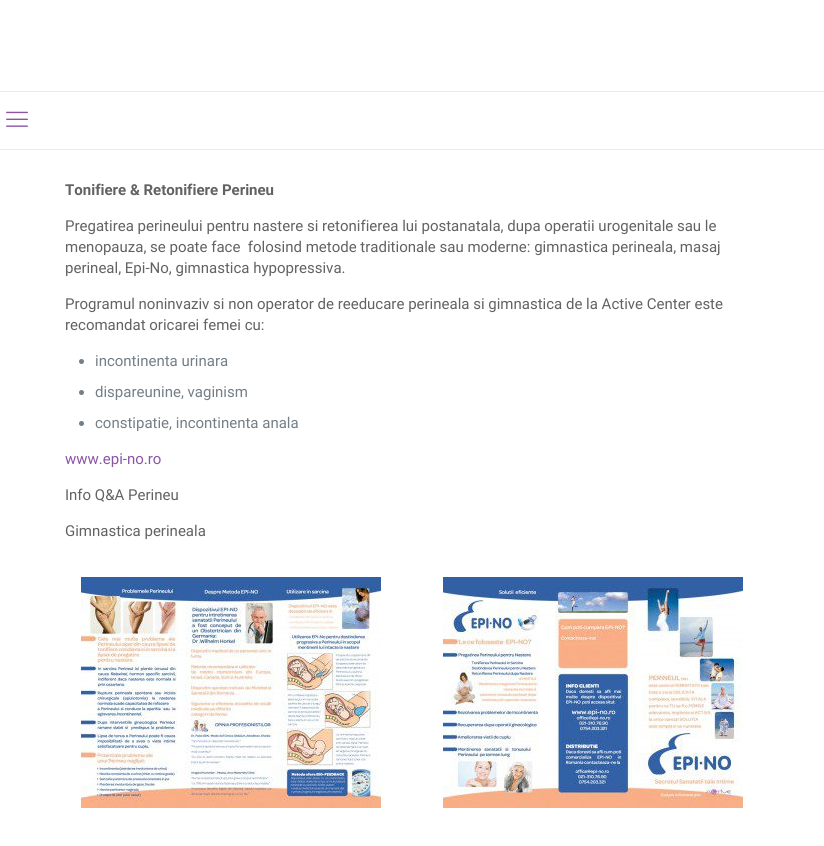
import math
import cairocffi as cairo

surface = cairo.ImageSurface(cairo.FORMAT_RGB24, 824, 846)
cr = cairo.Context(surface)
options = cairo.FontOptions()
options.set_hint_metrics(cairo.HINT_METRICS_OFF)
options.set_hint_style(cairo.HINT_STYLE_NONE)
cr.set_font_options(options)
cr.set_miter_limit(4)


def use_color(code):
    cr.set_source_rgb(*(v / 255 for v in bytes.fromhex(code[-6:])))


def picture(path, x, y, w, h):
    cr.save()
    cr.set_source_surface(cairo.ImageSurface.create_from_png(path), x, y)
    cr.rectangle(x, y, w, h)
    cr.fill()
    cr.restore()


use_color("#ffffff")
cr.paint()
use_color("#ebebeb")
cr.rectangle(0, 91, 824, 1)
cr.fill()
picture("img1.png", 6, 111, 22, 16)
cr.rectangle(0, 149, 824, 1)
cr.fill()
cr.select_font_face("Roboto", cairo.FONT_SLANT_NORMAL, cairo.FONT_WEIGHT_BOLD)
cr.set_font_size(15)
use_color("#626262")
cr.move_to(65, 195)
cr.show_text("Tonifiere & Retonifiere Perineu")
cr.select_font_face("Roboto")
cr.move_to(65, 231)
cr.show_text("Pregatirea perineului pentru nastere si retonifierea lui postanatala, dupa operatii urogenitale sau le")
cr.move_to(65, 252)
cr.show_text("menopauza, se poate face  folosind metode traditionale sau moderne: gimnastica perineala, masaj")
cr.move_to(65, 273)
cr.show_text("perineal, Epi-No, gimnastica hypopressiva.")
cr.move_to(65, 309)
cr.show_text("Programul noninvaziv si non operator de reeducare perineala si gimnastica de la Active Center este")
cr.move_to(65, 330)
cr.show_text("recomandat oricarei femei cu:")
use_color("#737e86")
cr.new_path()
cr.arc(81.5, 361.5, 2.5, 0, 2 * math.pi)
cr.fill()
cr.move_to(95, 366)
cr.show_text("incontinenta urinara")
cr.new_path()
cr.arc(81.5, 392.5, 2.5, 0, 2 * math.pi)
cr.fill()
cr.move_to(95, 397)
cr.show_text("dispareunine, vaginism")
cr.new_path()
cr.arc(81.5, 423.5, 2.5, 0, 2 * math.pi)
cr.fill()
cr.move_to(95, 428)
cr.show_text("constipatie, incontinenta anala")
use_color("#8a55a5")
cr.move_to(65, 464)
cr.show_text("www.epi-no.ro")
use_color("#626262")
cr.move_to(65, 500)
cr.show_text("Info Q&A Perineu")
cr.move_to(65, 536)
cr.show_text("Gimnastica perineala")
picture("img2.png", 81, 577, 300, 231)
picture("img3.png", 443, 577, 300, 231)
surface.write_to_png("result.png")
